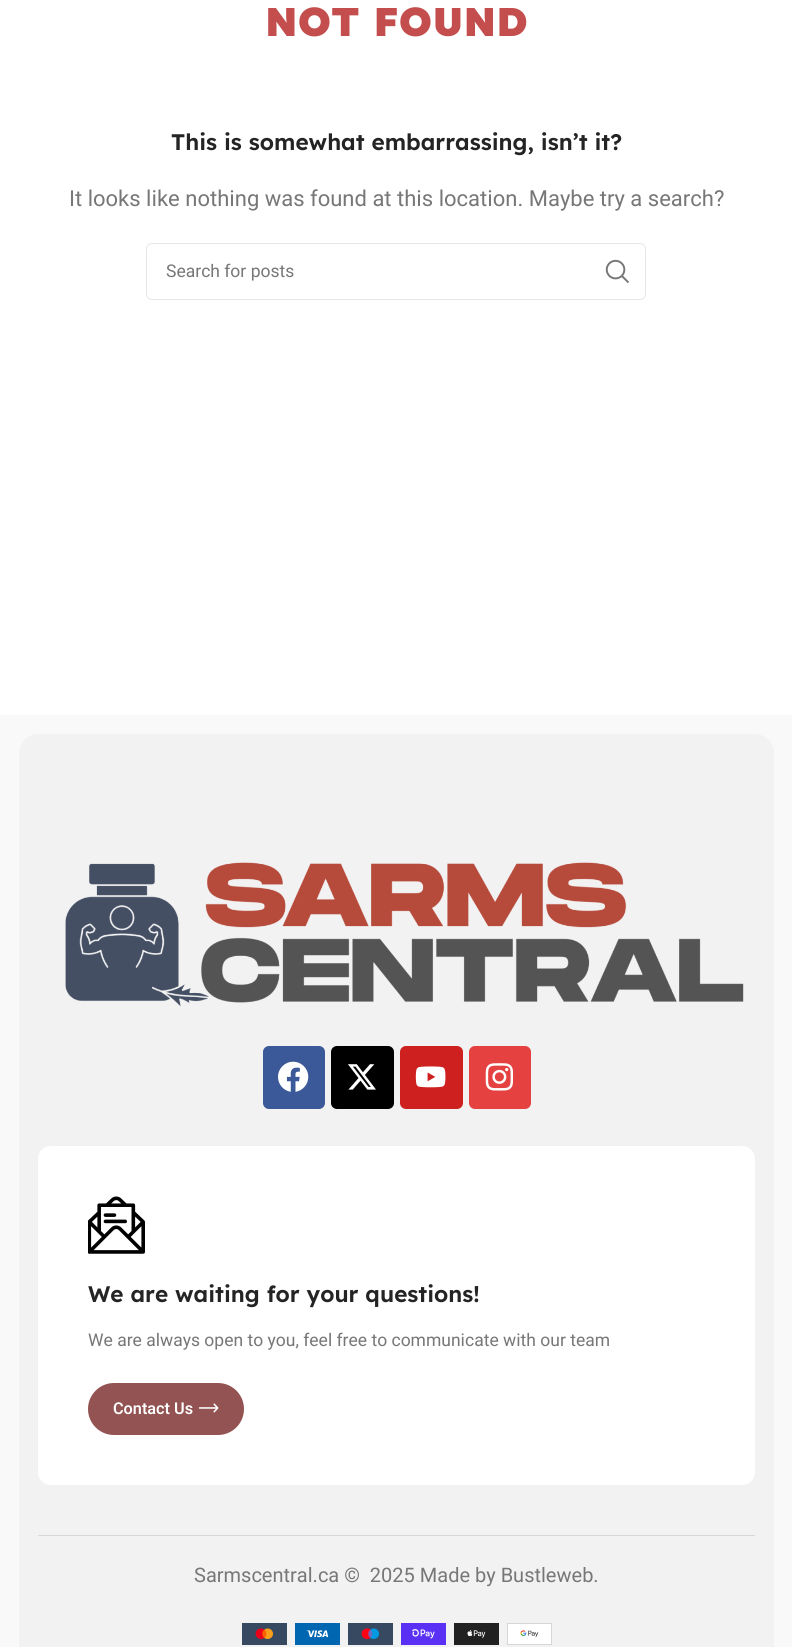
import math
import cairocffi as cairo

surface = cairo.ImageSurface(cairo.FORMAT_RGB24, 792, 1647)
cr = cairo.Context(surface)
options = cairo.FontOptions()
options.set_hint_metrics(cairo.HINT_METRICS_OFF)
options.set_hint_style(cairo.HINT_STYLE_NONE)
cr.set_font_options(options)
cr.set_miter_limit(4)


def use_color(code):
    cr.set_source_rgb(*(v / 255 for v in bytes.fromhex(code[-6:])))


def round_rect(x, y, w, h, r):
    cr.new_sub_path()
    for i, (u, v) in enumerate([(x + w - r, y + h - r), (x + r, y + h - r), (x + r, y + r), (x + w - r, y + r)]):
        cr.arc(u, v, r, i * math.pi / 2, (i + 1) * math.pi / 2)
    cr.close_path()


def picture(path, x, y, w, h):
    cr.save()
    cr.set_source_surface(cairo.ImageSurface.create_from_png(path), x, y)
    cr.rectangle(x, y, w, h)
    cr.fill()
    cr.restore()


use_color("#ffffff")
cr.paint()
cr.select_font_face("Lexend Black")
cr.set_font_size(40)
use_color("#c44e4e")
cr.move_to(265, 36)
cr.show_text("NOT FOUND")
cr.select_font_face("Lexend SemiBold")
cr.set_font_size(22.5)
use_color("#242424")
cr.move_to(171, 150)
cr.show_text("This is somewhat embarrassing, isn’t it?")
cr.select_font_face("Heebo")
cr.set_font_size(22)
use_color("#777777")
cr.move_to(69, 206)
cr.show_text("It looks like nothing was found at this location. Maybe try a search?")
round_rect(146.5, 243.5, 499, 56, 5.5)
use_color("#e6e6e6")
cr.set_line_width(1)
cr.stroke()
cr.set_font_size(17.5)
use_color("#777777")
cr.move_to(166, 277)
cr.show_text("Search for posts")
picture("img1.png", 605, 259, 24, 25)
use_color("#f9f9f9")
cr.rectangle(0, 715, 792, 38)
cr.fill()
use_color("#f2f2f2")
round_rect(9.5, 724.5, 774, 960, 28.5)
cr.fill_preserve()
use_color("#f9f9f9")
cr.set_line_width(19)
cr.stroke()
picture("img2.png", 65, 862, 679, 145)
use_color("#3b5998")
round_rect(263, 1046, 62, 63, 6)
cr.fill()
picture("img3.png", 278, 1061, 31, 31)
use_color("#000000")
round_rect(331, 1046, 63, 63, 6)
cr.fill()
picture("img4.png", 348, 1064, 28, 26)
use_color("#cd201f")
round_rect(400, 1046, 63, 63, 6)
cr.fill()
picture("img5.png", 415, 1066, 31, 22)
use_color("#e54141")
round_rect(469, 1046, 62, 63, 6)
cr.fill()
picture("img6.png", 485, 1063, 29, 28)
use_color("#ffffff")
round_rect(38, 1146, 717, 339, 13)
cr.fill()
picture("img7.png", 88, 1196, 57, 58)
cr.select_font_face("Lexend SemiBold")
cr.set_font_size(22.5)
use_color("#242424")
cr.move_to(88, 1302)
cr.show_text("We are waiting for your questions!")
cr.select_font_face("Heebo")
cr.set_font_size(17.5)
use_color("#777777")
cr.move_to(88, 1346)
cr.show_text("We are always open to you, feel free to communicate with our team")
use_color("#945353")
round_rect(88, 1383, 156, 52, 26)
cr.fill()
cr.select_font_face("Heebo SemiBold")
cr.set_font_size(16.25)
use_color("#ffffff")
cr.move_to(113, 1414)
cr.show_text("Contact Us")
picture("img8.png", 199, 1403, 20, 10)
use_color("#d7d7d7")
cr.rectangle(38, 1535, 717, 1)
cr.fill()
cr.select_font_face("Heebo")
cr.set_font_size(20)
use_color("#777777")
cr.move_to(194, 1582)
cr.show_text("Sarmscentral.ca ©  2025 Made by Bustleweb.")
picture("img9.png", 242, 1623, 310, 22)
surface.write_to_png("result.png")
